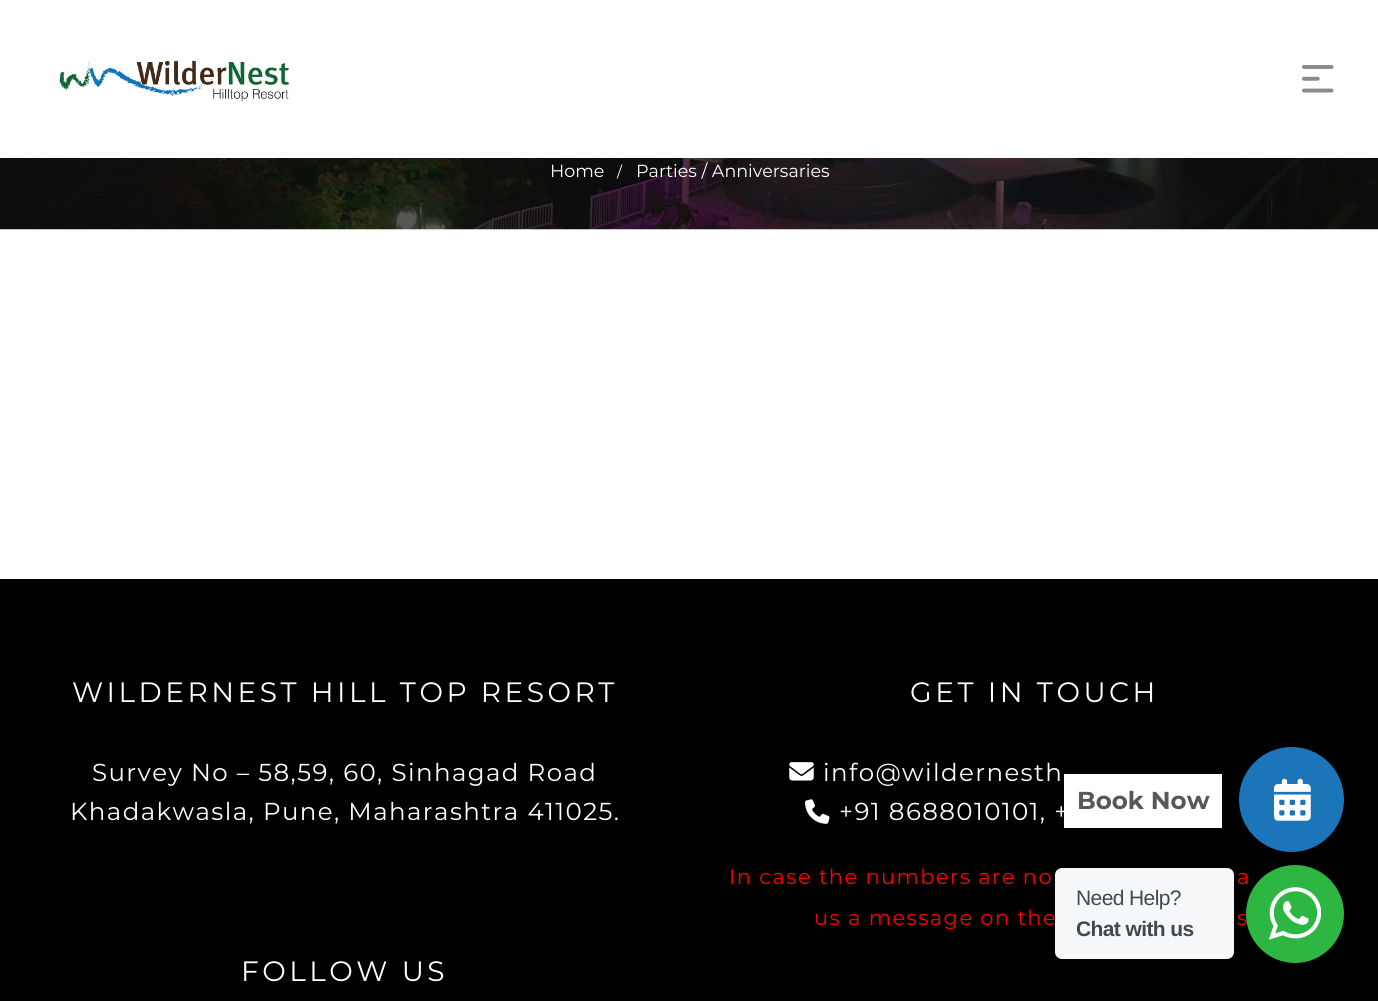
import math
import cairocffi as cairo

surface = cairo.ImageSurface(cairo.FORMAT_RGB24, 1378, 1001)
cr = cairo.Context(surface)
options = cairo.FontOptions()
options.set_hint_metrics(cairo.HINT_METRICS_OFF)
options.set_hint_style(cairo.HINT_STYLE_NONE)
cr.set_font_options(options)
cr.set_miter_limit(4)


def use_color(code):
    cr.set_source_rgb(*(v / 255 for v in bytes.fromhex(code[-6:])))


def spaced_text(x, y, s, letter, word):
    cr.move_to(x, y)
    for ch in s:
        cr.show_text(ch)
        cr.rel_move_to(letter + word * (ch == ' '), 0)


def round_rect(x, y, w, h, r):
    cr.new_sub_path()
    for i, (u, v) in enumerate([(x + w - r, y + h - r), (x + r, y + h - r), (x + r, y + r), (x + w - r, y + r)]):
        cr.arc(u, v, r, i * math.pi / 2, (i + 1) * math.pi / 2)
    cr.close_path()


def shadow(x, y, w, h, r, blur, alpha):
    cr.push_group_with_content(cairo.CONTENT_ALPHA)
    cr.set_operator(cairo.OPERATOR_SOURCE)
    for i in range(15, -16, -2):
        e = blur * i / 6
        if min(w, h) + 2 * e > 0:
            cr.set_source_rgba(0, 0, 0, alpha * math.erfc((i - 1) / 8.5) / 2)
            round_rect(x - e, y - e, w + 2 * e, h + 2 * e, max(0, min(r + e + blur * .6, min(w, h) / 2 + e)))
            cr.fill()
    cr.mask(cr.pop_group())


def picture(path, x, y, w, h):
    cr.save()
    cr.set_source_surface(cairo.ImageSurface.create_from_png(path), x, y)
    cr.rectangle(x, y, w, h)
    cr.fill()
    cr.restore()


use_color("#ffffff")
cr.paint()
picture("img1.png", 59, 59, 230, 43)
picture("img2.png", 1302, 65, 32, 28)
picture("img3.png", 0, 158, 1378, 72)
cr.select_font_face("Montserrat")
cr.set_font_size(17.5)
use_color("#ffffff")
cr.move_to(550, 177)
cr.show_text("Home")
cr.set_font_size(15)
cr.move_to(617, 177)
cr.show_text("/")
cr.set_font_size(17.5)
cr.move_to(636, 177)
cr.show_text("Parties / Anniversaries")
use_color("#000000")
cr.rectangle(0, 579, 1378, 422)
cr.fill()
cr.set_font_size(28)
use_color("#ffffff")
spaced_text(72, 702, "WILDERNEST HILL TOP RESORT", 3.5, 0)
cr.set_font_size(24.5)
spaced_text(92, 781, "Survey No – 58,59, 60, Sinhagad Road", 1.4, 0)
spaced_text(70, 820, "Khadakwasla, Pune, Maharashtra 411025.", 1.4, 0)
cr.set_font_size(28)
spaced_text(910, 702, "GET IN TOUCH", 3.5, 0)
picture("img4.png", 789, 762, 25, 19)
cr.set_font_size(24.5)
spaced_text(823, 781, "info@wildernesth", 1.4, 0)
picture("img5.png", 805, 799, 25, 25)
spaced_text(839, 820, "+91 8688010101, +", 1.4, 0)
cr.set_font_size(21)
use_color("#ff0000")
spaced_text(729, 884, "In case the numbers are no", 1.4, 0)
spaced_text(1237, 884, "a", 1.4, 0)
spaced_text(814, 925, "us a message on the", 1.4, 0)
spaced_text(1237, 925, "s", 1.4, 0)
cr.set_font_size(28)
use_color("#ffffff")
spaced_text(241, 981, "FOLLOW US", 3.5, 0)
use_color("#1d75b9")
cr.new_path()
cr.arc(1291.5, 799.5, 52.5, 0, 2 * math.pi)
cr.fill()
use_color("#ffffff")
cr.rectangle(1064, 774, 158, 54)
cr.fill()
cr.select_font_face("Montserrat", cairo.FONT_SLANT_NORMAL, cairo.FONT_WEIGHT_BOLD)
cr.set_font_size(24.5)
use_color("#585858")
cr.move_to(1077, 809)
cr.show_text("Book Now")
picture("img6.png", 1274, 778, 37, 43)
use_color("#000000")
shadow(1243, 872, 105, 105, 52.5, 7, 0.14)
use_color("#f5f7f9")
round_rect(1055, 868, 179, 91, 7)
cr.fill()
cr.select_font_face("Liberation Sans")
cr.set_font_size(21)
use_color("#43474e")
spaced_text(1076, 905, "Need Help?", -0.6, 0)
cr.select_font_face("Liberation Sans", cairo.FONT_SLANT_NORMAL, cairo.FONT_WEIGHT_BOLD)
spaced_text(1076, 936, "Chat with us", -0.6, 0)
use_color("#2db742")
cr.new_path()
cr.arc(1295, 914, 49, 0, 2 * math.pi)
cr.fill()
picture("img7.png", 1269, 887, 52, 53)
surface.write_to_png("result.png")
